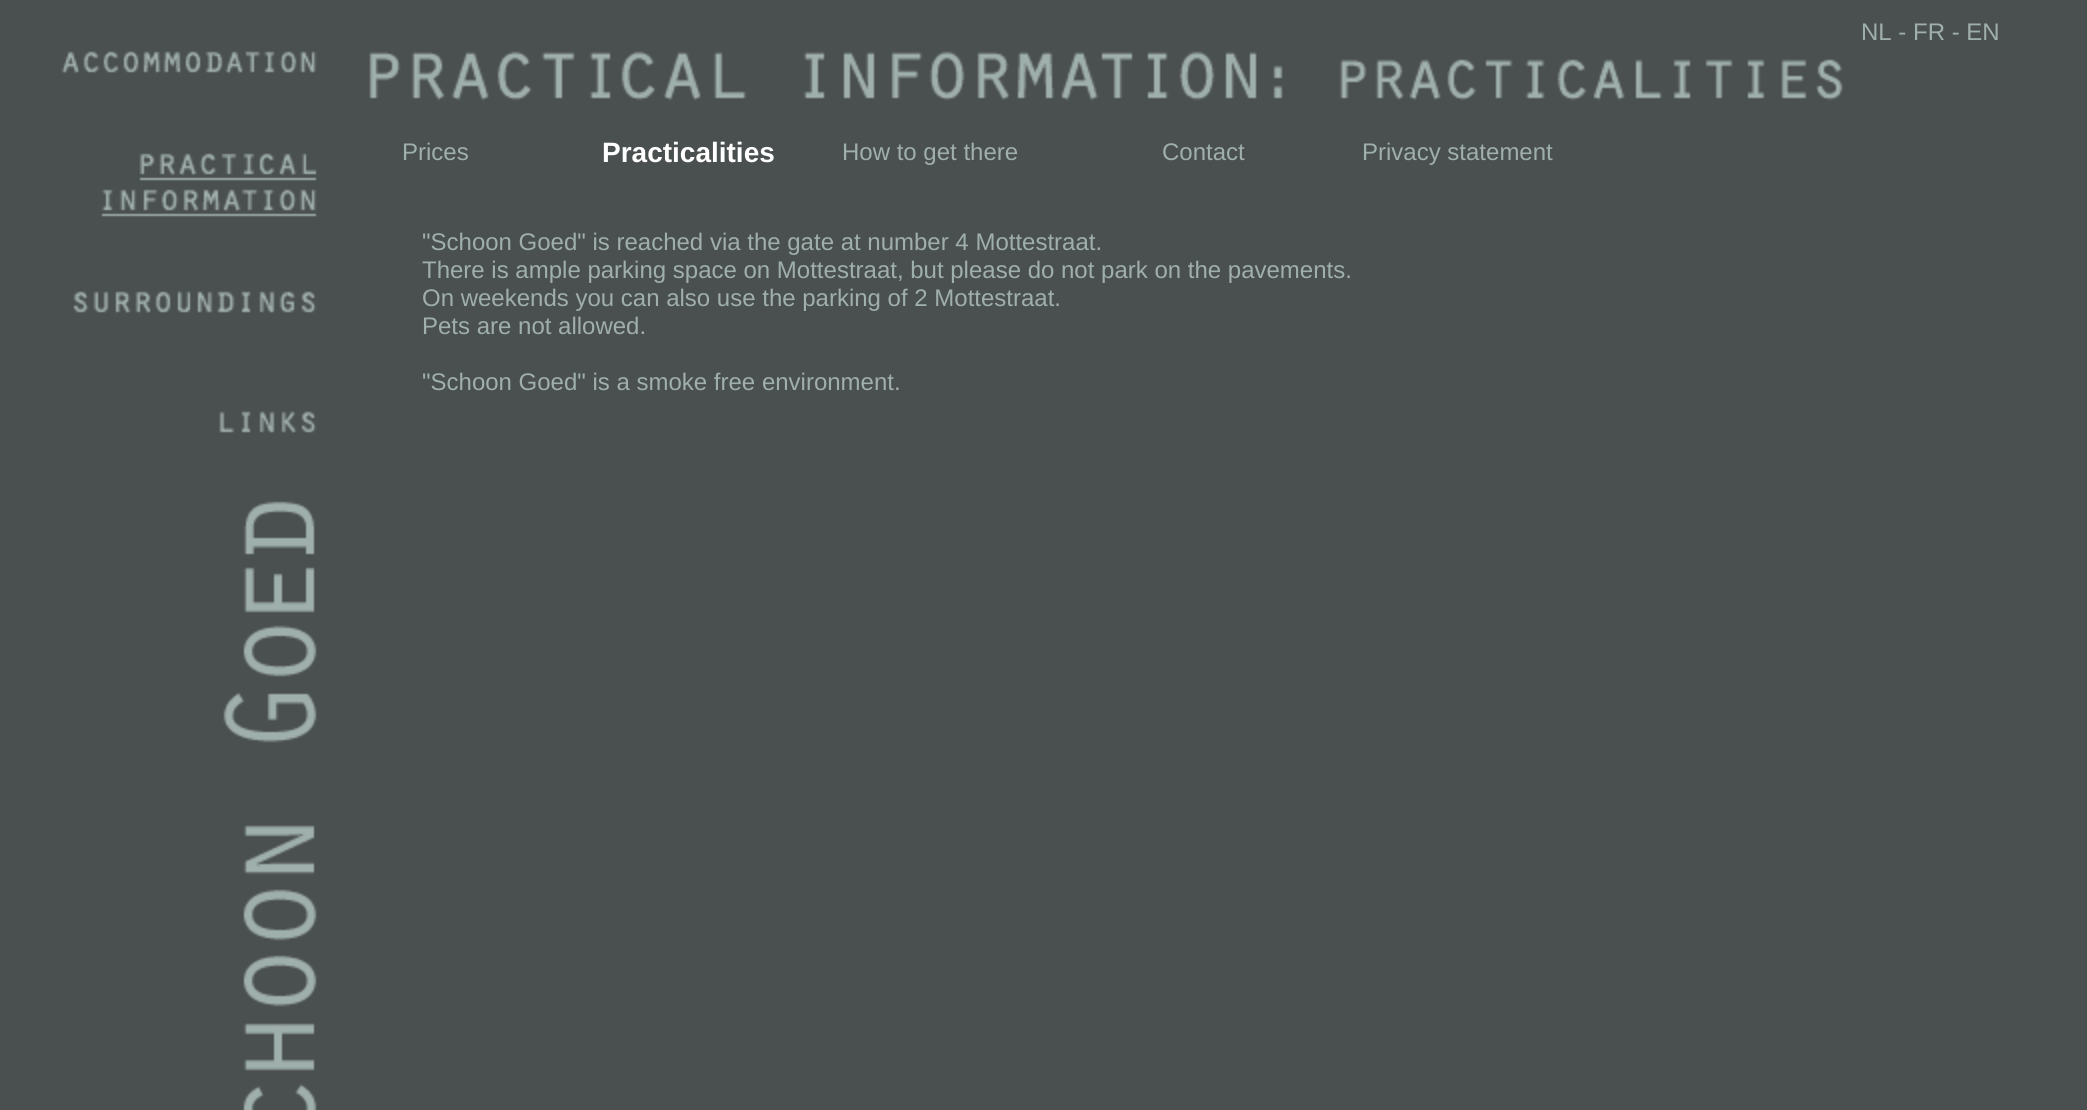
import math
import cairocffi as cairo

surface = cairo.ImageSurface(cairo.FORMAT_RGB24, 2087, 1110)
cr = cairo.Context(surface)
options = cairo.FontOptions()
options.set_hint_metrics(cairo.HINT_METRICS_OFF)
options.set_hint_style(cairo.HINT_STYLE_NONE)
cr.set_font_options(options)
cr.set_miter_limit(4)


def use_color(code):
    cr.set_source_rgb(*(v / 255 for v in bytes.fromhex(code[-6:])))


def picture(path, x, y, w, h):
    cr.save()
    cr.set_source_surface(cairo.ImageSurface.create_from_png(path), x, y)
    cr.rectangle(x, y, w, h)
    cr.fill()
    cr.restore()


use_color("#4a4f4f")
cr.paint()
picture("img1.png", 61, 51, 256, 23)
picture("img2.png", 101, 153, 216, 64)
picture("img3.png", 73, 291, 244, 22)
picture("img4.png", 219, 411, 98, 22)
picture("img5.png", 223, 501, 94, 609)
cr.select_font_face("Liberation Sans")
cr.set_font_size(24)
use_color("#9fafac")
cr.move_to(1861, 40)
cr.show_text("NL - FR - EN")
picture("img6.png", 369, 51, 888, 50)
picture("img7.png", 1273, 59, 570, 42)
cr.move_to(402, 160)
cr.show_text("Prices")
cr.select_font_face("Liberation Sans", cairo.FONT_SLANT_NORMAL, cairo.FONT_WEIGHT_BOLD)
cr.set_font_size(28)
use_color("#ffffff")
cr.move_to(602, 162)
cr.show_text("Practicalities")
cr.select_font_face("Liberation Sans")
cr.set_font_size(24)
use_color("#9fafac")
cr.move_to(842, 160)
cr.show_text("How to get there")
cr.move_to(1162, 160)
cr.show_text("Contact")
cr.move_to(1362, 160)
cr.show_text("Privacy statement")
cr.move_to(422, 250)
cr.show_text("\"Schoon Goed\" is reached via the gate at number 4 Mottestraat.")
cr.move_to(422, 278)
cr.show_text("There is ample parking space on Mottestraat, but please do not park on the pavements.")
cr.move_to(422, 306)
cr.show_text("On weekends you can also use the parking of 2 Mottestraat.")
cr.move_to(422, 334)
cr.show_text("Pets are not allowed.")
cr.move_to(422, 390)
cr.show_text("\"Schoon Goed\" is a smoke free environment.")
surface.write_to_png("result.png")
